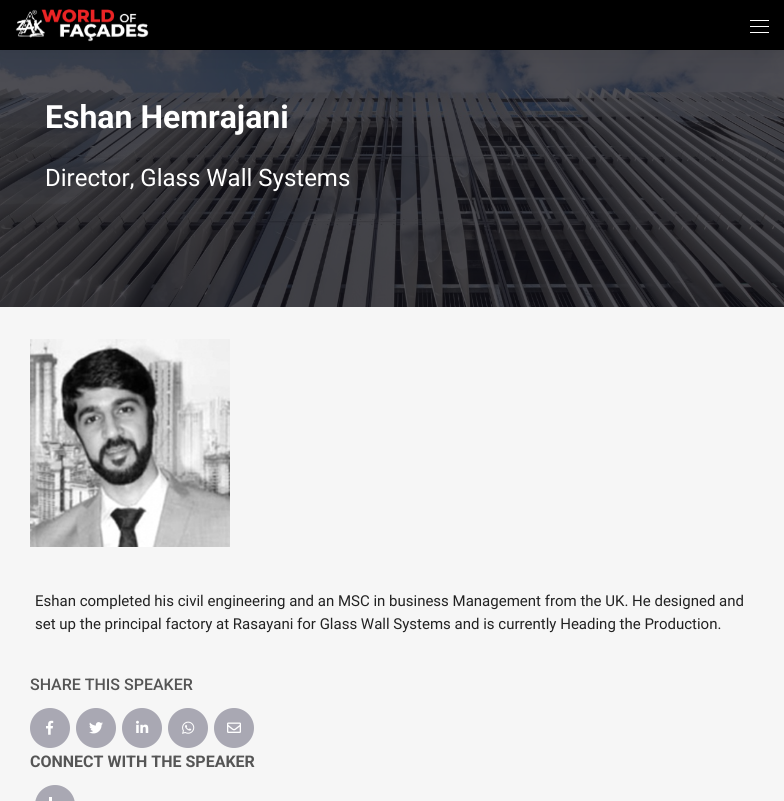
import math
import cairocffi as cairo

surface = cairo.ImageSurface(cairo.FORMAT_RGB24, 784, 801)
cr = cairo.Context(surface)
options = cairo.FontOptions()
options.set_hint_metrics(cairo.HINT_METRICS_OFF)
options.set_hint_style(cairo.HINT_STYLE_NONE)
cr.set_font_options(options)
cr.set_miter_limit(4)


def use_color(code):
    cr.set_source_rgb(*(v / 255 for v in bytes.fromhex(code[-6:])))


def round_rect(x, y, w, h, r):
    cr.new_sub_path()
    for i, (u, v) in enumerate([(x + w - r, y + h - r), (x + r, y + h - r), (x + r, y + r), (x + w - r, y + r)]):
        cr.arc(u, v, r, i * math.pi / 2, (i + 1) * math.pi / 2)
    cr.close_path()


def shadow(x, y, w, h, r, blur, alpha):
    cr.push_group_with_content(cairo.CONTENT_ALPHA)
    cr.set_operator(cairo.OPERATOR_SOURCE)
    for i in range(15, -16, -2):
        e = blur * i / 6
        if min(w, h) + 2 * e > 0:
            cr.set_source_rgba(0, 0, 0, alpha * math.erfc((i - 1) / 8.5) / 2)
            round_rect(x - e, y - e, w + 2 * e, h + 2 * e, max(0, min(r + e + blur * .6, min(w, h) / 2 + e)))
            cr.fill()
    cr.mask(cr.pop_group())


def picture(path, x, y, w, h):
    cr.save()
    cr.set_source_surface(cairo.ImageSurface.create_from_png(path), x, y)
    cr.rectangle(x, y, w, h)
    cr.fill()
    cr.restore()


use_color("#f6f6f6")
cr.paint()
use_color("#121219")
cr.rectangle(0, 50, 784, 257)
cr.fill()
picture("img2.png", 0, 50, 784, 257)
use_color("#000000")
shadow(0, 1, 784, 50, 0, 15, 0.1)
use_color("#000000")
cr.rectangle(0, 0, 784, 50)
cr.fill()
picture("img1.png", 15, 9, 134, 33)
use_color("#ffffff")
cr.rectangle(750, 20, 19, 1)
cr.fill()
cr.rectangle(750, 26, 19, 1)
cr.fill()
cr.rectangle(750, 32, 19, 1)
cr.fill()
cr.select_font_face("Roboto", cairo.FONT_SLANT_NORMAL, cairo.FONT_WEIGHT_BOLD)
cr.set_font_size(32)
cr.move_to(45, 128)
cr.show_text("Eshan Hemrajani")
cr.select_font_face("Roboto")
cr.set_font_size(24)
cr.move_to(45, 186)
cr.show_text("Director, Glass Wall Systems")
picture("img3.png", 30, 339, 200, 208)
cr.set_font_size(15)
use_color("#222222")
cr.move_to(35, 606)
cr.show_text("Eshan completed his civil engineering and an MSC in business Management from the UK. He designed and")
cr.move_to(35, 629)
cr.show_text("set up the principal factory at Rasayani for Glass Wall Systems and is currently Heading the Production.")
cr.select_font_face("Roboto Medium")
cr.set_font_size(16)
use_color("#555555")
cr.move_to(30, 690)
cr.show_text("SHARE THIS SPEAKER")
use_color("#a9a8b3")
cr.new_path()
cr.arc(50, 728, 20, 0, 2 * math.pi)
cr.fill()
picture("img4.png", 46, 720, 8, 15)
cr.arc(96, 728, 20, 0, 2 * math.pi)
cr.fill()
picture("img5.png", 89, 722, 14, 12)
cr.arc(142, 728, 20, 0, 2 * math.pi)
cr.fill()
picture("img6.png", 136, 720, 13, 13)
cr.arc(188, 728, 20, 0, 2 * math.pi)
cr.fill()
picture("img7.png", 182, 721, 13, 13)
cr.arc(234, 728, 20, 0, 2 * math.pi)
cr.fill()
picture("img8.png", 227, 722, 14, 11)
cr.select_font_face("Roboto", cairo.FONT_SLANT_NORMAL, cairo.FONT_WEIGHT_BOLD)
use_color("#555555")
cr.move_to(30, 767)
cr.show_text("CONNECT WITH THE SPEAKER")
use_color("#a9a8b3")
round_rect(35, 785, 40, 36, 20)
cr.fill()
use_color("#ffffff")
cr.rectangle(49, 797, 3, 4)
cr.fill()
surface.write_to_png("result.png")
